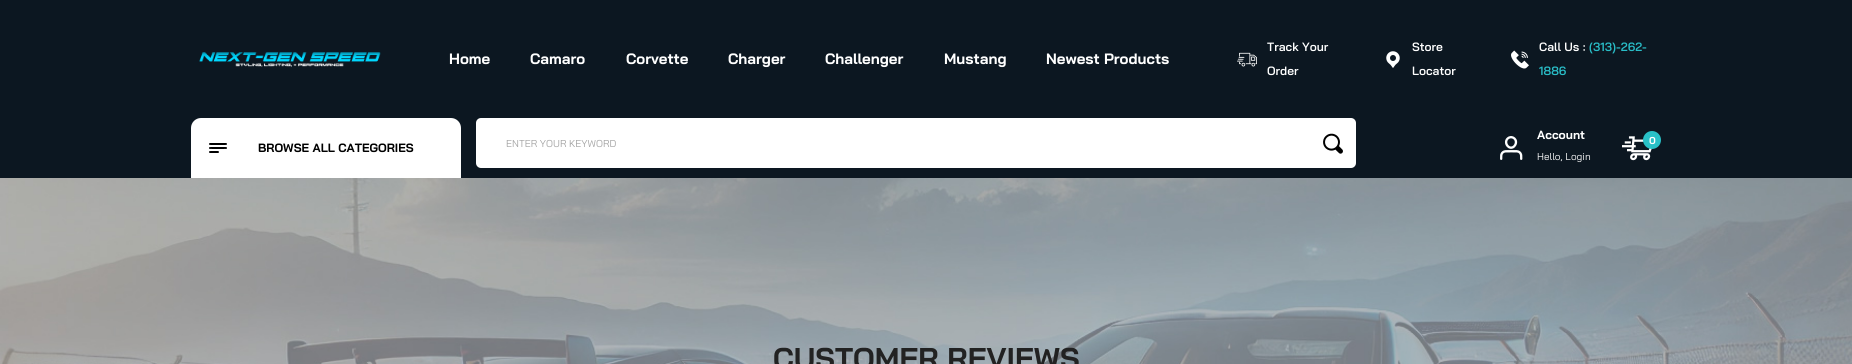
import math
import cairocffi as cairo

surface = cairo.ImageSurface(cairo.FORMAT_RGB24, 1852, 364)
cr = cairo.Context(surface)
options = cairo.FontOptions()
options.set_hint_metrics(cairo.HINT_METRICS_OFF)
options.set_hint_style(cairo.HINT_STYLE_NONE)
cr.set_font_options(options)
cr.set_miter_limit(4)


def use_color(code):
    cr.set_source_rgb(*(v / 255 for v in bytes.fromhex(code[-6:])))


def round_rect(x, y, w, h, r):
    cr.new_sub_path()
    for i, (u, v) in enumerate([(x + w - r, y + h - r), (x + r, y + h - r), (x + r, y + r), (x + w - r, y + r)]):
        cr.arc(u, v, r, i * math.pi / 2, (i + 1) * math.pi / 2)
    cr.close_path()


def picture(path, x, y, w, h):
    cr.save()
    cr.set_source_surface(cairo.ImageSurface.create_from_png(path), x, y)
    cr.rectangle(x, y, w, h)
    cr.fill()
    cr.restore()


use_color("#ffffff")
cr.paint()
use_color("#0c1721")
cr.rectangle(0, 0, 1852, 178)
cr.fill()
use_color("#ffffff")
cr.new_path()
cr.move_to(201, 118)
cr.line_to(451, 118)
cr.curve_to(456.5, 118, 461, 122.5, 461, 128)
cr.line_to(461, 178)
cr.line_to(191, 178)
cr.line_to(191, 128)
cr.curve_to(191, 122.5, 195.5, 118, 201, 118)
cr.close_path()
cr.fill()
picture("img1.png", 209, 143, 18, 10)
cr.select_font_face("Bai Jamjuree", cairo.FONT_SLANT_NORMAL, cairo.FONT_WEIGHT_BOLD)
cr.set_font_size(12)
use_color("#000000")
cr.move_to(258, 152)
cr.show_text("BROWSE ALL CATEGORIES")
picture("img2.png", 199, 52, 182, 15)
cr.set_font_size(15)
use_color("#ffffff")
cr.move_to(449, 64)
cr.show_text("Home")
cr.move_to(530, 64)
cr.show_text("Camaro")
cr.move_to(626, 64)
cr.show_text("Corvette")
cr.move_to(728, 64)
cr.show_text("Charger")
cr.move_to(825, 64)
cr.show_text("Challenger")
cr.move_to(944, 64)
cr.show_text("Mustang")
cr.move_to(1046, 64)
cr.show_text("Newest Products")
picture("img3.png", 1237, 52, 20, 15)
cr.select_font_face("Bai Jamjuree SemiBold")
cr.set_font_size(12)
cr.move_to(1267, 51)
cr.show_text("Track Your")
cr.move_to(1267, 75)
cr.show_text("Order")
picture("img4.png", 1386, 51, 14, 17)
cr.move_to(1412, 51)
cr.show_text("Store")
cr.move_to(1412, 75)
cr.show_text("Locator")
picture("img5.png", 1511, 50, 18, 19)
cr.move_to(1539, 51)
cr.show_text("Call Us :")
use_color("#29bdc7")
cr.move_to(1589, 51)
cr.show_text("(313)-262-")
cr.move_to(1539, 75)
cr.show_text("1886")
use_color("#ffffff")
round_rect(476, 118, 880, 50, 5)
cr.fill()
cr.select_font_face("Bai Jamjuree")
cr.set_font_size(10)
use_color("#a1a1a1")
cr.move_to(506, 147)
cr.show_text("ENTER YOUR KEYWORD")
picture("img6.png", 1323, 133, 20, 21)
picture("img7.png", 1500, 136, 23, 24)
cr.select_font_face("Bai Jamjuree", cairo.FONT_SLANT_NORMAL, cairo.FONT_WEIGHT_BOLD)
cr.set_font_size(12)
use_color("#ffffff")
cr.move_to(1537, 139)
cr.show_text("Account")
cr.select_font_face("Bai Jamjuree")
cr.set_font_size(10)
cr.move_to(1537, 160)
cr.show_text("Hello, Login")
picture("img8.png", 1622, 136, 30, 25)
use_color("#29c1c7")
cr.arc(1652, 140, 9, 0, 2 * math.pi)
cr.fill()
cr.select_font_face("Bai Jamjuree", cairo.FONT_SLANT_NORMAL, cairo.FONT_WEIGHT_BOLD)
use_color("#ffffff")
cr.move_to(1649, 144)
cr.show_text("0")
picture("img9.png", 0, 178, 1852, 186)
cr.set_font_size(30)
use_color("#222222")
cr.move_to(773, 369)
cr.show_text("CUSTOMER REVIEWS")
surface.write_to_png("result.png")
